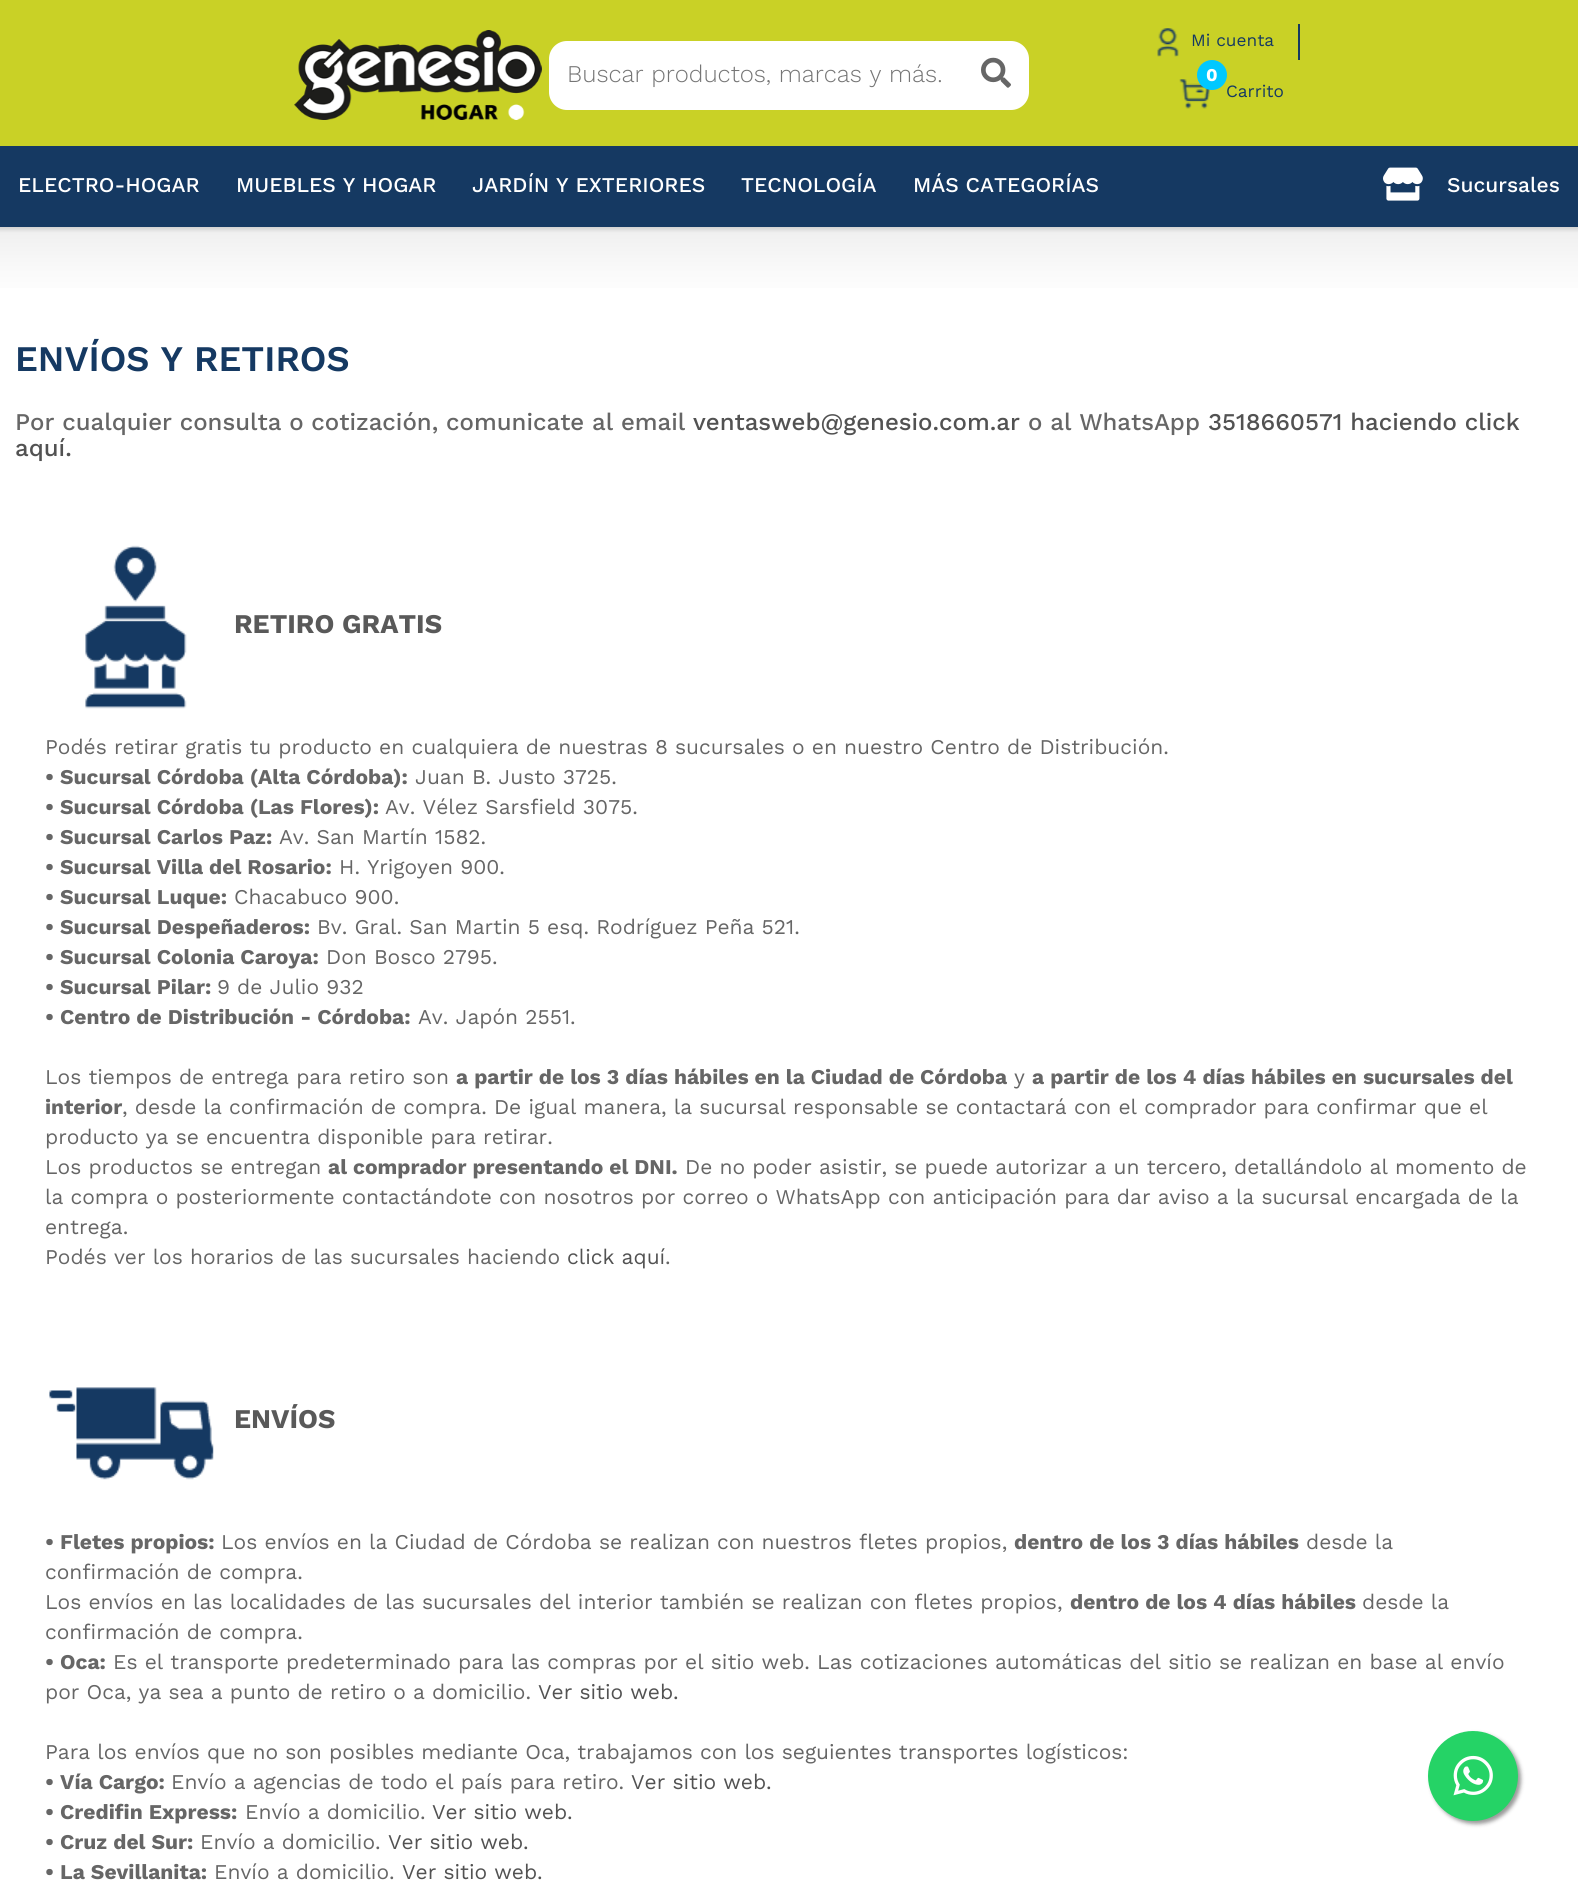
import math
import cairocffi as cairo

surface = cairo.ImageSurface(cairo.FORMAT_RGB24, 1578, 1881)
cr = cairo.Context(surface)
options = cairo.FontOptions()
options.set_hint_metrics(cairo.HINT_METRICS_OFF)
options.set_hint_style(cairo.HINT_STYLE_NONE)
cr.set_font_options(options)
cr.set_miter_limit(4)


def use_color(code):
    cr.set_source_rgb(*(v / 255 for v in bytes.fromhex(code[-6:])))


def round_rect(x, y, w, h, r):
    cr.new_sub_path()
    for i, (u, v) in enumerate([(x + w - r, y + h - r), (x + r, y + h - r), (x + r, y + r), (x + w - r, y + r)]):
        cr.arc(u, v, r, i * math.pi / 2, (i + 1) * math.pi / 2)
    cr.close_path()


def shadow(x, y, w, h, r, blur, alpha):
    cr.push_group_with_content(cairo.CONTENT_ALPHA)
    cr.set_operator(cairo.OPERATOR_SOURCE)
    for i in range(15, -16, -2):
        e = blur * i / 6
        if min(w, h) + 2 * e > 0:
            cr.set_source_rgba(0, 0, 0, alpha * math.erfc((i - 1) / 8.5) / 2)
            round_rect(x - e, y - e, w + 2 * e, h + 2 * e, max(0, min(r + e + blur * .6, min(w, h) / 2 + e)))
            cr.fill()
    cr.mask(cr.pop_group())


def picture(path, x, y, w, h):
    cr.save()
    cr.set_source_surface(cairo.ImageSurface.create_from_png(path), x, y)
    cr.rectangle(x, y, w, h)
    cr.fill()
    cr.restore()


use_color("#ffffff")
cr.paint()
use_color("#c9d126")
cr.rectangle(0, 0, 1578, 146)
cr.fill()
picture("img1.png", 294, 30, 248, 90)
use_color("#ffffff")
round_rect(549, 41, 480, 69, 18)
cr.fill()
cr.select_font_face("Work Sans Light")
cr.set_font_size(24)
use_color("#757575")
cr.move_to(567, 82)
cr.show_text("Buscar productos, marcas y más.")
picture("img2.png", 981, 57, 30, 31)
use_color("#153962")
cr.rectangle(1298, 24, 2, 36)
cr.fill()
picture("img3.png", 1157, 28, 22, 29)
cr.select_font_face("Work Sans")
cr.set_font_size(17.25)
cr.move_to(1191, 46)
cr.show_text("Mi cuenta")
picture("img4.png", 1179, 79, 31, 30)
cr.move_to(1226, 97)
cr.show_text("Carrito")
use_color("#00c8ff")
cr.new_path()
cr.arc(1212, 75, 15, 0, 2 * math.pi)
cr.fill()
cr.select_font_face("Work Sans", cairo.FONT_SLANT_NORMAL, cairo.FONT_WEIGHT_BOLD)
cr.set_font_size(18)
use_color("#ffffff")
cr.move_to(1206, 81)
cr.show_text("0")
use_color("#153962")
cr.rectangle(0, 146, 1578, 81)
cr.fill()
cr.select_font_face("Work Sans Medium")
cr.set_font_size(21)
use_color("#ffffff")
cr.move_to(18, 192)
cr.show_text("ELECTRO-HOGAR")
cr.move_to(236, 192)
cr.show_text("MUEBLES Y HOGAR")
cr.move_to(472, 192)
cr.show_text("JARDÍN Y EXTERIORES")
cr.move_to(741, 192)
cr.show_text("TECNOLOGÍA")
cr.move_to(913, 192)
cr.show_text("MÁS CATEGORÍAS")
picture("img5.png", 1383, 167, 40, 34)
cr.move_to(1447, 192)
cr.show_text("Sucursales")
gradient = cairo.LinearGradient(789, 226, 789, 302)
gradient.add_color_stop_rgba(0, 0.8, 0.8, 0.8, 1)
gradient.add_color_stop_rgba(0.09, 0.941, 0.941, 0.941, 1)
gradient.add_color_stop_rgba(0.55, 0.976, 0.976, 0.976, 1)
gradient.add_color_stop_rgba(1, 1, 1, 1, 1)
cr.set_source(gradient)
cr.rectangle(0, 227, 1578, 61)
cr.fill()
cr.select_font_face("Work Sans SemiBold")
cr.set_font_size(36)
use_color("#153962")
cr.move_to(15, 371)
cr.show_text("ENVÍOS Y RETIROS")
cr.select_font_face("Work Sans Medium")
cr.set_font_size(24)
use_color("#666666")
cr.move_to(15, 430)
cr.show_text("Por cualquier consulta o cotización, comunicate al email")
use_color("#525252")
cr.move_to(693, 430)
cr.show_text("ventasweb@genesio.com.ar")
use_color("#666666")
cr.move_to(1028, 430)
cr.show_text("o al WhatsApp")
use_color("#525252")
cr.move_to(1208, 430)
cr.show_text("3518660571 haciendo click")
cr.move_to(15, 456)
cr.show_text("aquí.")
picture("img6.png", 85, 545, 102, 164)
cr.select_font_face("Work Sans", cairo.FONT_SLANT_NORMAL, cairo.FONT_WEIGHT_BOLD)
cr.set_font_size(27)
use_color("#595959")
cr.move_to(234, 633)
cr.show_text("RETIRO GRATIS")
cr.select_font_face("Work Sans")
cr.set_font_size(21)
use_color("#666666")
cr.move_to(45, 754)
cr.show_text("Podés retirar gratis tu producto en cualquiera de nuestras 8 sucursales o en nuestro Centro de Distribución.")
cr.select_font_face("Work Sans", cairo.FONT_SLANT_NORMAL, cairo.FONT_WEIGHT_BOLD)
cr.move_to(45, 784)
cr.show_text("• Sucursal Córdoba (Alta Córdoba):")
cr.select_font_face("Work Sans")
cr.move_to(415, 784)
cr.show_text("Juan B. Justo 3725.")
cr.select_font_face("Work Sans", cairo.FONT_SLANT_NORMAL, cairo.FONT_WEIGHT_BOLD)
cr.move_to(45, 814)
cr.show_text("• Sucursal Córdoba (Las Flores):")
cr.select_font_face("Work Sans")
cr.move_to(385, 814)
cr.show_text("Av. Vélez Sarsfield 3075.")
cr.select_font_face("Work Sans", cairo.FONT_SLANT_NORMAL, cairo.FONT_WEIGHT_BOLD)
cr.move_to(45, 844)
cr.show_text("• Sucursal Carlos Paz:")
cr.select_font_face("Work Sans")
cr.move_to(279, 844)
cr.show_text("Av. San Martín 1582.")
cr.select_font_face("Work Sans", cairo.FONT_SLANT_NORMAL, cairo.FONT_WEIGHT_BOLD)
cr.move_to(45, 874)
cr.show_text("• Sucursal Villa del Rosario:")
cr.select_font_face("Work Sans")
cr.move_to(339, 874)
cr.show_text("H. Yrigoyen 900.")
cr.select_font_face("Work Sans", cairo.FONT_SLANT_NORMAL, cairo.FONT_WEIGHT_BOLD)
cr.move_to(45, 904)
cr.show_text("• Sucursal Luque:")
cr.select_font_face("Work Sans")
cr.move_to(234, 904)
cr.show_text("Chacabuco 900.")
cr.select_font_face("Work Sans", cairo.FONT_SLANT_NORMAL, cairo.FONT_WEIGHT_BOLD)
cr.move_to(45, 934)
cr.show_text("• Sucursal Despeñaderos:")
cr.select_font_face("Work Sans")
cr.move_to(317, 934)
cr.show_text("Bv. Gral. San Martin 5 esq. Rodríguez Peña 521.")
cr.select_font_face("Work Sans", cairo.FONT_SLANT_NORMAL, cairo.FONT_WEIGHT_BOLD)
cr.move_to(45, 964)
cr.show_text("• Sucursal Colonia Caroya:")
cr.select_font_face("Work Sans")
cr.move_to(326, 964)
cr.show_text("Don Bosco 2795.")
cr.select_font_face("Work Sans", cairo.FONT_SLANT_NORMAL, cairo.FONT_WEIGHT_BOLD)
cr.move_to(45, 994)
cr.show_text("• Sucursal Pilar:")
cr.select_font_face("Work Sans")
cr.move_to(217, 994)
cr.show_text("9 de Julio 932")
cr.select_font_face("Work Sans", cairo.FONT_SLANT_NORMAL, cairo.FONT_WEIGHT_BOLD)
cr.move_to(45, 1024)
cr.show_text("• Centro de Distribución - Córdoba:")
cr.select_font_face("Work Sans")
cr.move_to(418, 1024)
cr.show_text("Av. Japón 2551.")
cr.move_to(45, 1084)
cr.show_text("Los tiempos de entrega para retiro son")
cr.select_font_face("Work Sans", cairo.FONT_SLANT_NORMAL, cairo.FONT_WEIGHT_BOLD)
cr.move_to(456, 1084)
cr.show_text("a partir de los 3 días hábiles en la Ciudad de Córdoba")
cr.select_font_face("Work Sans")
cr.move_to(1014, 1084)
cr.show_text("y")
cr.select_font_face("Work Sans", cairo.FONT_SLANT_NORMAL, cairo.FONT_WEIGHT_BOLD)
cr.move_to(1032, 1084)
cr.show_text("a partir de los 4 días hábiles en sucursales del")
cr.move_to(45, 1114)
cr.show_text("interior")
cr.select_font_face("Work Sans")
cr.move_to(122, 1114)
cr.show_text(", desde la confirmación de compra. De igual manera, la sucursal responsable se contactará con el comprador para confirmar que el")
cr.move_to(45, 1144)
cr.show_text("producto ya se encuentra disponible para retirar.")
cr.move_to(45, 1174)
cr.show_text("Los productos se entregan")
cr.select_font_face("Work Sans", cairo.FONT_SLANT_NORMAL, cairo.FONT_WEIGHT_BOLD)
cr.move_to(328, 1174)
cr.show_text("al comprador presentando el DNI.")
cr.select_font_face("Work Sans")
cr.move_to(685, 1174)
cr.show_text("De no poder asistir, se puede autorizar a un tercero, detallándolo al momento de")
cr.move_to(45, 1204)
cr.show_text("la compra o posteriormente contactándote con nosotros por correo o WhatsApp con anticipación para dar aviso a la sucursal encargada de la")
cr.move_to(45, 1234)
cr.show_text("entrega.")
cr.move_to(45, 1264)
cr.show_text("Podés ver los horarios de las sucursales haciendo")
use_color("#525252")
cr.move_to(567, 1264)
cr.show_text("click aquí")
use_color("#666666")
cr.move_to(665, 1264)
cr.show_text(".")
picture("img7.png", 49, 1387, 165, 93)
cr.select_font_face("Work Sans", cairo.FONT_SLANT_NORMAL, cairo.FONT_WEIGHT_BOLD)
cr.set_font_size(27)
use_color("#595959")
cr.move_to(234, 1428)
cr.show_text("ENVÍOS")
cr.set_font_size(21)
use_color("#666666")
cr.move_to(45, 1549)
cr.show_text("• Fletes propios:")
cr.select_font_face("Work Sans")
cr.move_to(221, 1549)
cr.show_text("Los envíos en la Ciudad de Córdoba se realizan con nuestros fletes propios,")
cr.select_font_face("Work Sans", cairo.FONT_SLANT_NORMAL, cairo.FONT_WEIGHT_BOLD)
cr.move_to(1014, 1549)
cr.show_text("dentro de los 3 días hábiles")
cr.select_font_face("Work Sans")
cr.move_to(1306, 1549)
cr.show_text("desde la")
cr.move_to(45, 1579)
cr.show_text("confirmación de compra.")
cr.move_to(45, 1609)
cr.show_text("Los envíos en las localidades de las sucursales del interior también se realizan con fletes propios,")
cr.select_font_face("Work Sans", cairo.FONT_SLANT_NORMAL, cairo.FONT_WEIGHT_BOLD)
cr.move_to(1070, 1609)
cr.show_text("dentro de los 4 días hábiles")
cr.select_font_face("Work Sans")
cr.move_to(1362, 1609)
cr.show_text("desde la")
cr.move_to(45, 1639)
cr.show_text("confirmación de compra.")
cr.select_font_face("Work Sans", cairo.FONT_SLANT_NORMAL, cairo.FONT_WEIGHT_BOLD)
cr.move_to(45, 1669)
cr.show_text("• Oca:")
cr.select_font_face("Work Sans")
cr.move_to(113, 1669)
cr.show_text("Es el transporte predeterminado para las compras por el sitio web. Las cotizaciones automáticas del sitio se realizan en base al envío")
cr.move_to(45, 1699)
cr.show_text("por Oca, ya sea a punto de retiro o a domicilio.")
use_color("#525252")
cr.move_to(538, 1699)
cr.show_text("Ver sitio web.")
use_color("#666666")
cr.move_to(45, 1759)
cr.show_text("Para los envíos que no son posibles mediante Oca, trabajamos con los seguientes transportes logísticos:")
cr.select_font_face("Work Sans", cairo.FONT_SLANT_NORMAL, cairo.FONT_WEIGHT_BOLD)
cr.move_to(45, 1789)
cr.show_text("• Vía Cargo:")
cr.select_font_face("Work Sans")
cr.move_to(171, 1789)
cr.show_text("Envío a agencias de todo el país para retiro.")
use_color("#525252")
cr.move_to(631, 1789)
cr.show_text("Ver sitio web.")
cr.select_font_face("Work Sans", cairo.FONT_SLANT_NORMAL, cairo.FONT_WEIGHT_BOLD)
use_color("#666666")
cr.move_to(45, 1819)
cr.show_text("• Credifin Express:")
cr.select_font_face("Work Sans")
cr.move_to(245, 1819)
cr.show_text("Envío a domicilio.")
use_color("#525252")
cr.move_to(432, 1819)
cr.show_text("Ver sitio web.")
cr.select_font_face("Work Sans", cairo.FONT_SLANT_NORMAL, cairo.FONT_WEIGHT_BOLD)
use_color("#666666")
cr.move_to(45, 1849)
cr.show_text("• Cruz del Sur:")
cr.select_font_face("Work Sans")
cr.move_to(200, 1849)
cr.show_text("Envío a domicilio.")
use_color("#525252")
cr.move_to(388, 1849)
cr.show_text("Ver sitio web.")
cr.select_font_face("Work Sans", cairo.FONT_SLANT_NORMAL, cairo.FONT_WEIGHT_BOLD)
use_color("#666666")
cr.move_to(45, 1879)
cr.show_text("• La Sevillanita:")
cr.select_font_face("Work Sans")
cr.move_to(214, 1879)
cr.show_text("Envío a domicilio.")
use_color("#525252")
cr.move_to(402, 1879)
cr.show_text("Ver sitio web.")
use_color("#999999")
shadow(1431, 1734, 90, 90, 45, 2, 1)
use_color("#25d366")
cr.arc(1473, 1776, 45, 0, 2 * math.pi)
cr.fill()
picture("img8.png", 1453, 1755, 40, 41)
surface.write_to_png("result.png")
